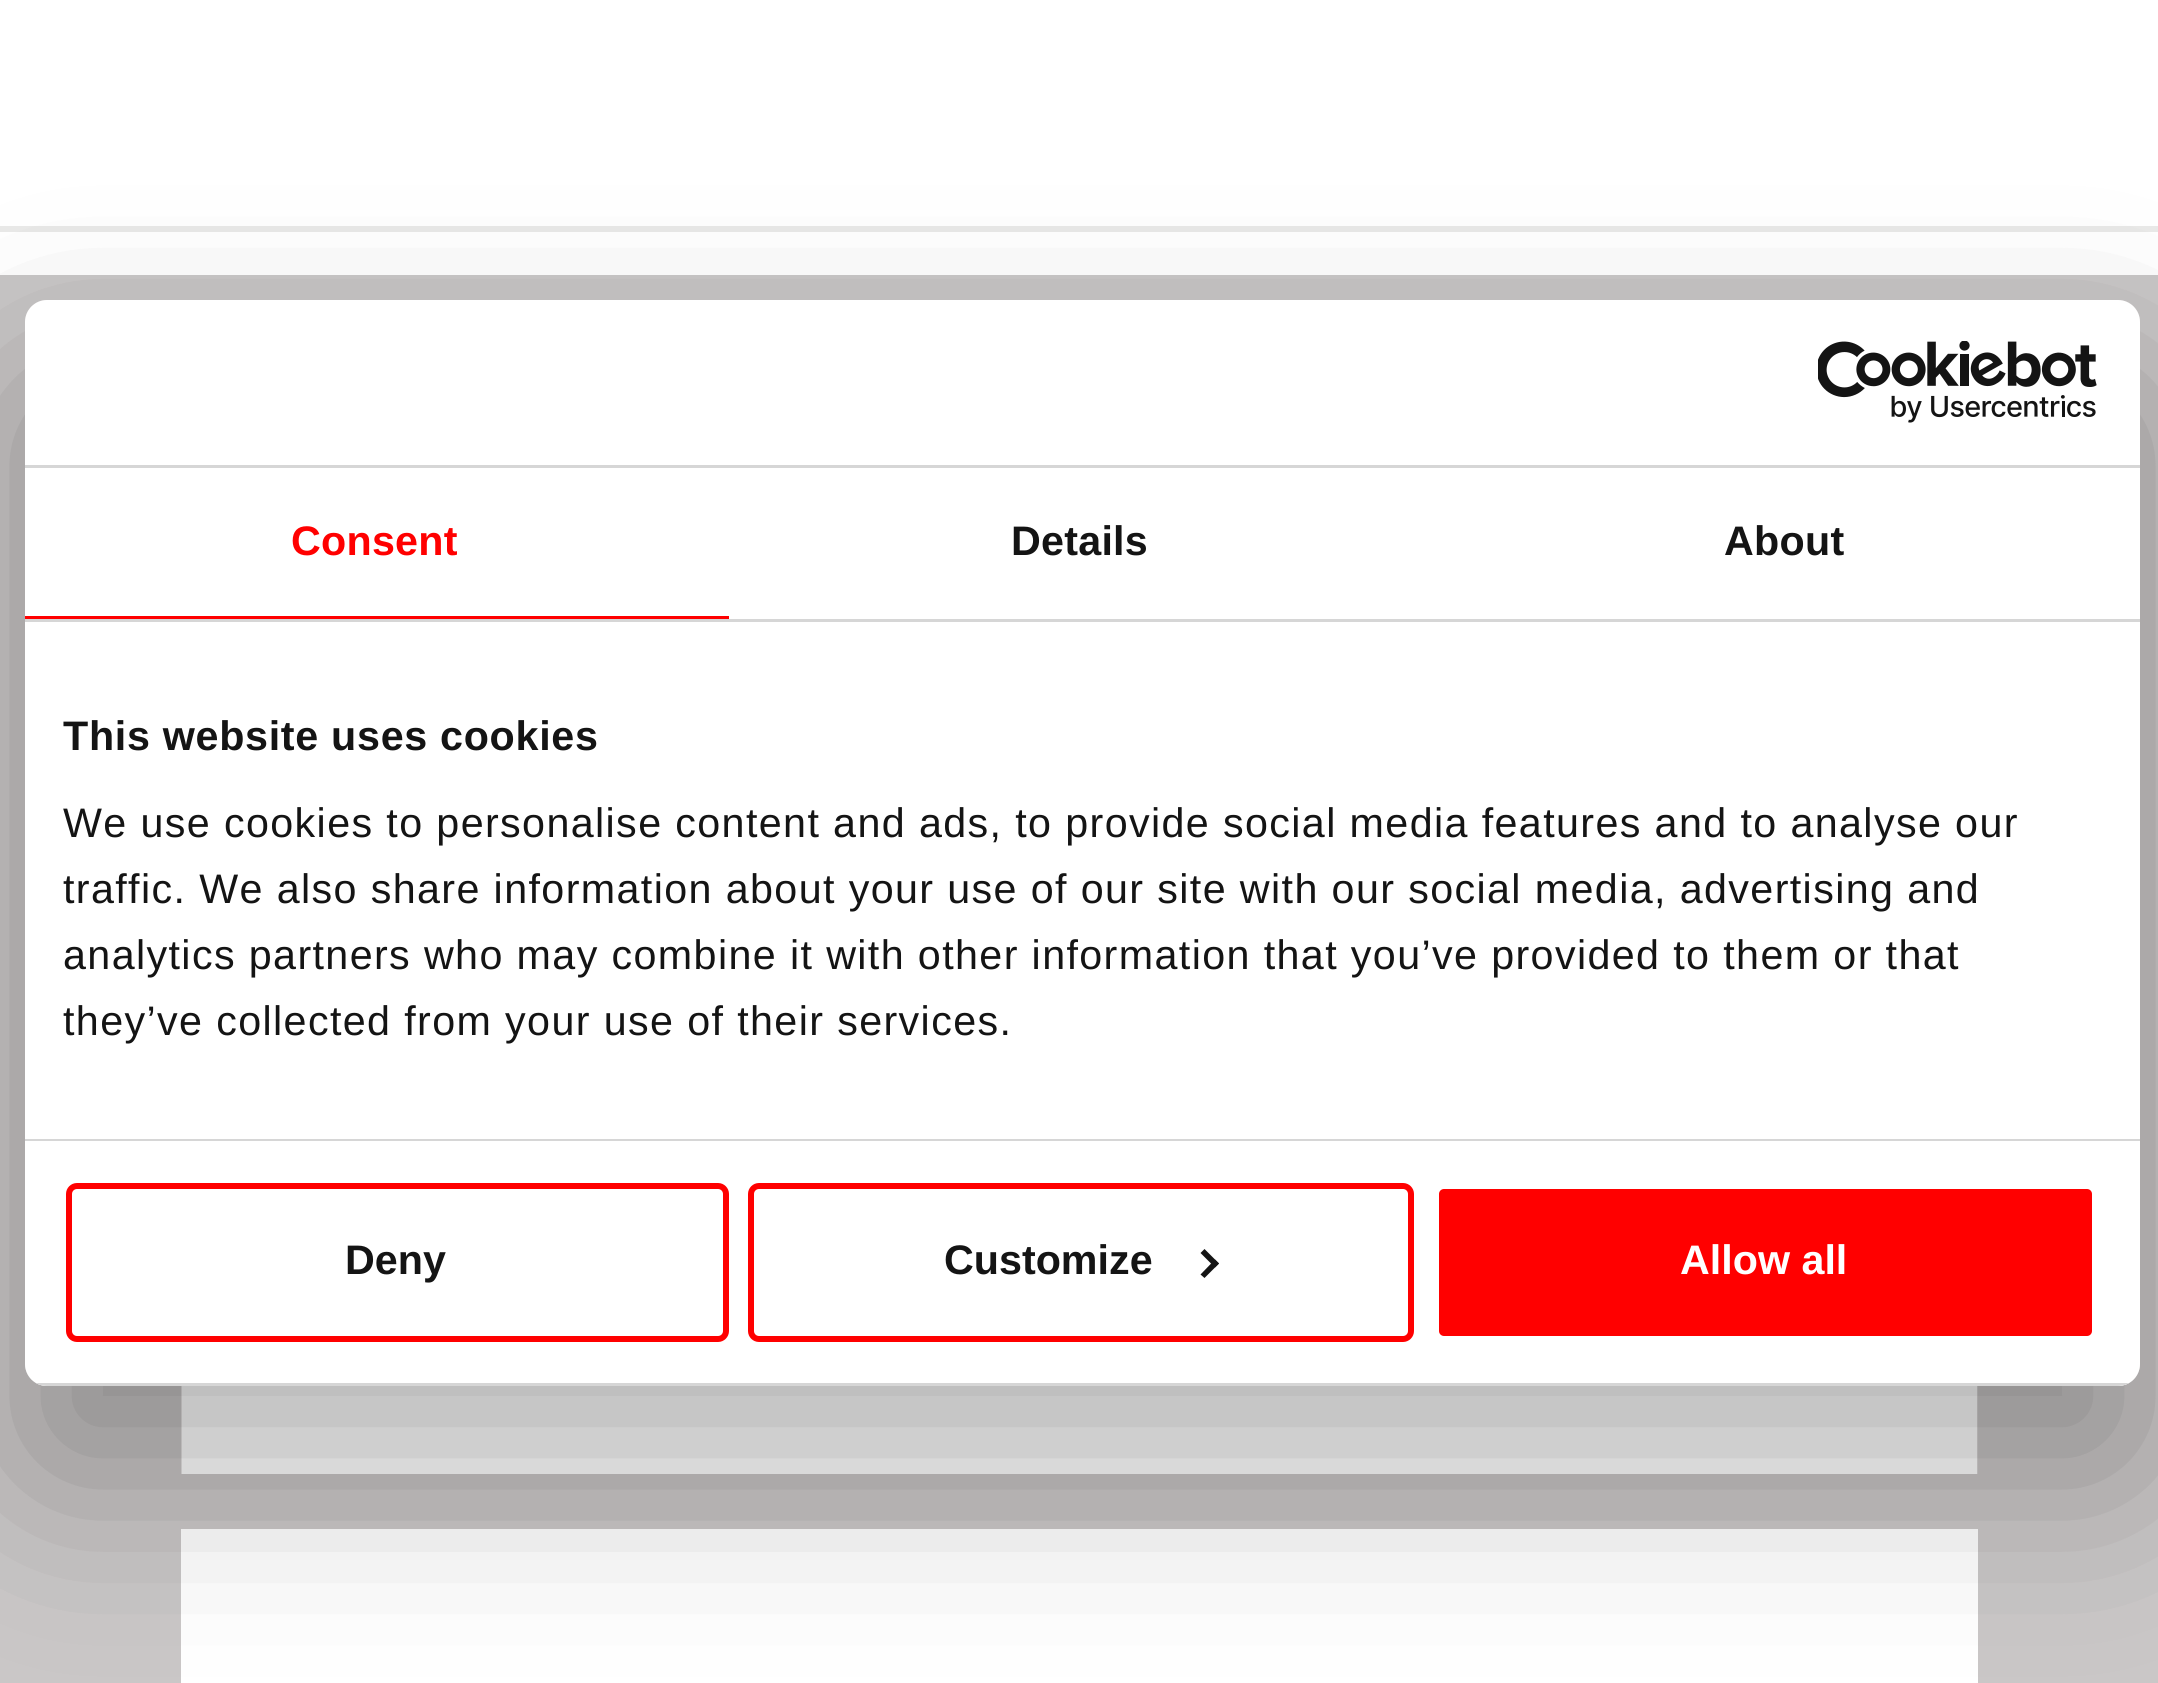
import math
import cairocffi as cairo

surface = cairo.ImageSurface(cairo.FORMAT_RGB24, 2158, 1683)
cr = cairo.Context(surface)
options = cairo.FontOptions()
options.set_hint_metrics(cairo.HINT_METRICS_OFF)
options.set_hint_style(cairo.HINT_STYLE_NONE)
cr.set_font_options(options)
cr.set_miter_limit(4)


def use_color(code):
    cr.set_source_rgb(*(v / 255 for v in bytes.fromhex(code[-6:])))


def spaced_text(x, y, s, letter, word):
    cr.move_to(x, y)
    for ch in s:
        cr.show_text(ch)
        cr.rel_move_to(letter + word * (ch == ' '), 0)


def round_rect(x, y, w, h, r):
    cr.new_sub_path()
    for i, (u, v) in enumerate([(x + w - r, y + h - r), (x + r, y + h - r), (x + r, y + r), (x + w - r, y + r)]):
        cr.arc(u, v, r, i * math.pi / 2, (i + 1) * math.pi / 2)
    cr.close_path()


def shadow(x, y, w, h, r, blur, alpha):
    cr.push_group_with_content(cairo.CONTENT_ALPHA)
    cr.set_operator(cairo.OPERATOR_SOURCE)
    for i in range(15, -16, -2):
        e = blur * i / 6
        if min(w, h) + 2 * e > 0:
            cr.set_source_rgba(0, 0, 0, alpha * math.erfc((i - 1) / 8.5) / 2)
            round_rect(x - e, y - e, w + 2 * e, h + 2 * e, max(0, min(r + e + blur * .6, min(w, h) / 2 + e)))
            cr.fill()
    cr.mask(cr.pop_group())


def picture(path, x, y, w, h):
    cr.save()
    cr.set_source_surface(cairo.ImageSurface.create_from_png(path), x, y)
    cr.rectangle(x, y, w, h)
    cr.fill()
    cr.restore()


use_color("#ffffff")
cr.paint()
use_color("#e9e9e8")
cr.rectangle(0, 226, 2158, 6)
cr.fill()
use_color("#cac7c7")
cr.rectangle(0, 275, 2158, 1408)
cr.fill()
picture("img1.png", 181, 1386, 1797, 88)
use_color("#ffffff")
cr.rectangle(181, 1529, 1797, 154)
cr.fill()
cr.save()
cr.set_fill_rule(cairo.FILL_RULE_EVEN_ODD)
cr.new_path()
cr.move_to(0, 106)
cr.line_to(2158, 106)
cr.line_to(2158, 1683)
cr.line_to(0, 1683)
cr.close_path()
cr.move_to(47, 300)
cr.line_to(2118, 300)
cr.curve_to(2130, 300, 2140, 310, 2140, 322)
cr.line_to(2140, 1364)
cr.curve_to(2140, 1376, 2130, 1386, 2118, 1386)
cr.line_to(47, 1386)
cr.curve_to(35, 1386, 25, 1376, 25, 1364)
cr.line_to(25, 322)
cr.curve_to(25, 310, 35, 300, 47, 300)
cr.close_path()
cr.clip()
use_color("#000000")
shadow(25, 388, 2115, 1086, 22, 93.5, 0.3)
cr.restore()
round_rect(25, 300, 2115, 1086, 22)
cr.fill()
use_color("#d6d6d6")
cr.rectangle(25, 465, 2115, 3)
cr.fill()
picture("img2.png", 1818, 341, 279, 82)
cr.rectangle(25, 619, 2115, 3)
cr.fill()
use_color("#ff0000")
cr.rectangle(25, 616, 704, 3)
cr.fill()
cr.select_font_face("Liberation Sans", cairo.FONT_SLANT_NORMAL, cairo.FONT_WEIGHT_BOLD)
cr.set_font_size(41.25)
spaced_text(291, 555, "Consent", 0.25, 0)
use_color("#141414")
spaced_text(1011, 555, "Details", 0.25, 0)
spaced_text(1724, 555, "About", 0.25, 0)
use_color("#d6d6d6")
cr.rectangle(25, 1139, 2115, 2)
cr.fill()
use_color("#141414")
spaced_text(63, 750, "This website uses cookies", 0.7, 0)
cr.select_font_face("Liberation Sans")
spaced_text(63, 837, "We use cookies to personalise content and ads, to provide social media features and to analyse our", 1.38, 0)
spaced_text(63, 903, "traffic. We also share information about your use of our site with our social media, advertising and", 1.38, 0)
spaced_text(63, 969, "analytics partners who may combine it with other information that you’ve provided to them or that", 1.38, 0)
spaced_text(63, 1035, "they’ve collected from your use of their services.", 1.38, 0)
cr.save()
round_rect(25, 300, 2115, 1086, 22)
cr.clip()
use_color("#d6d6d6")
cr.rectangle(36, 1383, 2093, 3)
cr.fill()
cr.restore()
round_rect(69, 1186, 657, 153, 8)
use_color("#ff0000")
cr.set_line_width(6)
cr.stroke()
cr.select_font_face("Liberation Sans", cairo.FONT_SLANT_NORMAL, cairo.FONT_WEIGHT_BOLD)
use_color("#141414")
cr.move_to(345, 1274)
cr.show_text("Deny")
round_rect(751, 1186, 660, 153, 8)
use_color("#ff0000")
cr.stroke()
use_color("#141414")
cr.move_to(944, 1274)
cr.show_text("Customize")
cr.new_path()
cr.move_to(1204.5, 1249)
cr.line_to(1219, 1263.5)
cr.line_to(1215, 1267.5)
cr.line_to(1200.5, 1253)
cr.close_path()
cr.fill()
cr.new_path()
cr.move_to(1215, 1259.5)
cr.line_to(1219, 1263.5)
cr.line_to(1204.5, 1278)
cr.line_to(1200.5, 1274.5)
cr.close_path()
cr.fill()
use_color("#ff0000")
round_rect(1436, 1186, 659, 153, 8)
cr.fill_preserve()
use_color("#ffffff")
cr.stroke()
cr.move_to(1680, 1274)
cr.show_text("Allow all")
surface.write_to_png("result.png")
